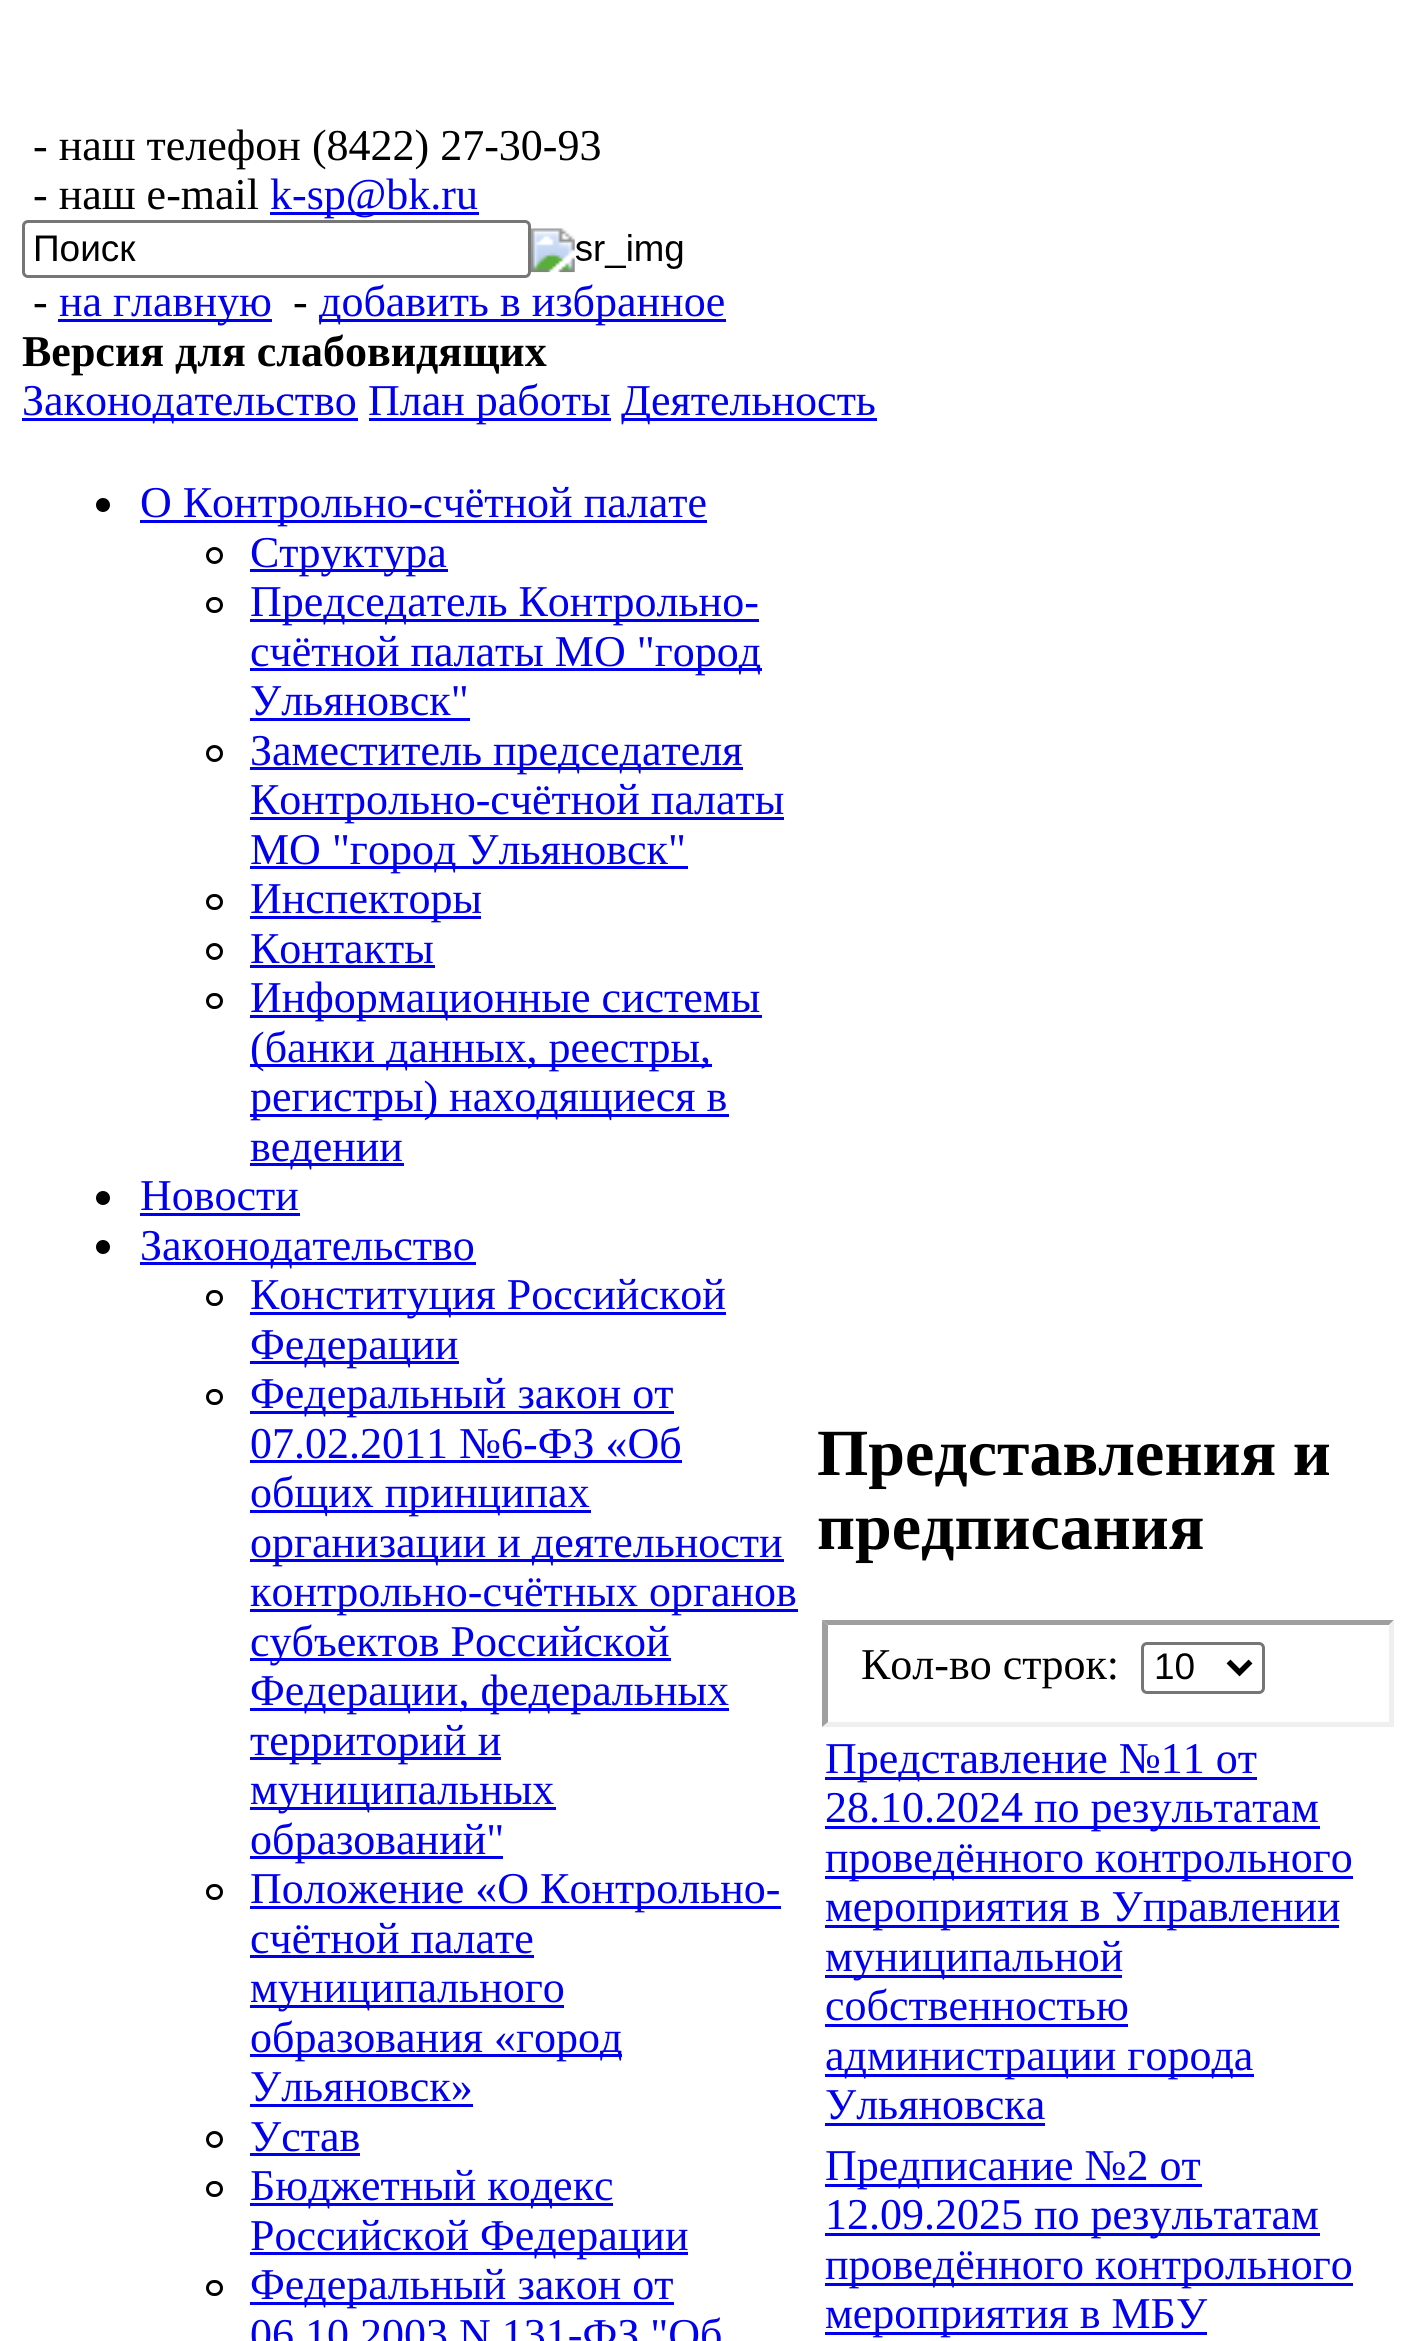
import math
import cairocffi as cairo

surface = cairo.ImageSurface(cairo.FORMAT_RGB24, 1428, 2341)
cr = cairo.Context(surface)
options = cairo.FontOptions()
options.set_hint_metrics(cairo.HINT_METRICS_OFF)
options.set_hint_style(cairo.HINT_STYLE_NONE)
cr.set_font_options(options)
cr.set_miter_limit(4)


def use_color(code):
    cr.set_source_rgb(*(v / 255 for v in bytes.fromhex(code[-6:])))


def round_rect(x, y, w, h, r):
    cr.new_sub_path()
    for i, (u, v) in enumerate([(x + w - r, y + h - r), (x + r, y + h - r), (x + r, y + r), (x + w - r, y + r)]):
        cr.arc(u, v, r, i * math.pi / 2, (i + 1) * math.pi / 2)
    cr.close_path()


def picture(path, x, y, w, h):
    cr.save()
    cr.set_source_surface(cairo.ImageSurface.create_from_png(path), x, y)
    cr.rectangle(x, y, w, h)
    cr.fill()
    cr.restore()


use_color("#ffffff")
cr.paint()
cr.select_font_face("Liberation Serif")
cr.set_font_size(44)
use_color("#000000")
cr.move_to(33, 160)
cr.show_text("- наш телефон (8422) 27-30-93")
cr.move_to(33, 209)
cr.show_text("- наш e-mail")
use_color("#0000ee")
cr.rectangle(270, 212, 209, 3)
cr.fill()
cr.move_to(270, 209)
cr.show_text("k-sp@bk.ru")
round_rect(23.5, 221.5, 506, 55, 4.5)
use_color("#767676")
cr.set_line_width(3)
cr.stroke()
cr.select_font_face("Liberation Sans")
cr.set_font_size(37)
use_color("#000000")
cr.move_to(33, 261)
cr.show_text("Поиск")
picture("img1.png", 531, 228, 152, 45)
cr.select_font_face("Liberation Serif")
cr.set_font_size(44)
cr.move_to(33, 316)
cr.show_text("-")
use_color("#0000ee")
cr.rectangle(58, 319, 214, 3)
cr.fill()
cr.move_to(59, 316)
cr.show_text("на главную")
use_color("#000000")
cr.move_to(293, 316)
cr.show_text("-")
use_color("#0000ee")
cr.rectangle(319, 319, 407, 3)
cr.fill()
cr.move_to(319, 316)
cr.show_text("добавить в избранное")
cr.select_font_face("Liberation Serif", cairo.FONT_SLANT_NORMAL, cairo.FONT_WEIGHT_BOLD)
use_color("#000000")
cr.move_to(22, 366)
cr.show_text("Версия для слабовидящих")
use_color("#0000ee")
cr.rectangle(22, 418, 336, 3)
cr.fill()
cr.select_font_face("Liberation Serif")
cr.move_to(22, 415)
cr.show_text("Законодательство")
cr.rectangle(369, 418, 242, 3)
cr.fill()
cr.move_to(368, 415)
cr.show_text("План работы")
cr.rectangle(622, 418, 255, 3)
cr.fill()
cr.move_to(621, 415)
cr.show_text("Деятельность")
use_color("#000000")
cr.new_path()
cr.arc(103, 505, 7, 0, 2 * math.pi)
cr.fill()
use_color("#0000ee")
cr.rectangle(140, 520, 567, 3)
cr.fill()
cr.move_to(140, 517)
cr.show_text("О Контрольно-счётной палате")
cr.new_path()
cr.arc(214.5, 555.5, 7, 0, 2 * math.pi)
use_color("#000000")
cr.stroke()
use_color("#0000ee")
cr.rectangle(250, 569, 198, 3)
cr.fill()
cr.move_to(250, 567)
cr.show_text("Структура")
round_rect(207.5, 598.5, 14, 13, 6.5)
use_color("#000000")
cr.stroke()
use_color("#0000ee")
cr.rectangle(250, 619, 509, 3)
cr.fill()
cr.move_to(250, 616)
cr.show_text("Председатель Контрольно-")
cr.rectangle(250, 668, 512, 3)
cr.fill()
cr.move_to(250, 666)
cr.show_text("счётной палаты МО \"город")
cr.move_to(250, 715)
cr.show_text("Ульяновск\"")
cr.rectangle(250, 718, 220, 3)
cr.fill()
cr.arc(214.5, 753.5, 7, 0, 2 * math.pi)
use_color("#000000")
cr.stroke()
use_color("#0000ee")
cr.rectangle(250, 767, 493, 3)
cr.fill()
cr.move_to(250, 765)
cr.show_text("Заместитель председателя")
cr.rectangle(250, 817, 534, 3)
cr.fill()
cr.move_to(250, 814)
cr.show_text("Контрольно-счётной палаты")
cr.rectangle(250, 866, 438, 3)
cr.fill()
cr.move_to(250, 864)
cr.show_text("МО \"город Ульяновск\"")
round_rect(207.5, 895.5, 14, 13, 6.5)
use_color("#000000")
cr.stroke()
use_color("#0000ee")
cr.rectangle(250, 916, 231, 3)
cr.fill()
cr.move_to(250, 913)
cr.show_text("Инспекторы")
cr.new_path()
cr.arc(214.5, 951.5, 7, 0, 2 * math.pi)
use_color("#000000")
cr.stroke()
use_color("#0000ee")
cr.move_to(250, 963)
cr.show_text("Контакты")
cr.rectangle(250, 965, 185, 3)
cr.fill()
round_rect(207.5, 994.5, 14, 13, 6.5)
use_color("#000000")
cr.stroke()
use_color("#0000ee")
cr.rectangle(250, 1015, 512, 3)
cr.fill()
cr.move_to(250, 1012)
cr.show_text("Информационные системы")
cr.rectangle(250, 1064, 462, 3)
cr.fill()
cr.move_to(250, 1062)
cr.show_text("(банки данных, реестры,")
cr.rectangle(250, 1114, 479, 3)
cr.fill()
cr.move_to(250, 1111)
cr.show_text("регистры) находящиеся в")
cr.rectangle(250, 1163, 154, 3)
cr.fill()
cr.move_to(250, 1161)
cr.show_text("ведении")
use_color("#000000")
cr.new_path()
cr.arc(103, 1198, 7, 0, 2 * math.pi)
cr.fill()
use_color("#0000ee")
cr.move_to(140, 1210)
cr.show_text("Новости")
cr.rectangle(140, 1213, 160, 3)
cr.fill()
use_color("#000000")
cr.arc(103, 1247, 7, 0, 2 * math.pi)
cr.fill()
use_color("#0000ee")
cr.rectangle(140, 1262, 336, 3)
cr.fill()
cr.move_to(140, 1260)
cr.show_text("Законодательство")
round_rect(207.5, 1291.5, 14, 13, 6.5)
use_color("#000000")
cr.stroke()
use_color("#0000ee")
cr.rectangle(250, 1312, 476, 3)
cr.fill()
cr.move_to(250, 1309)
cr.show_text("Конституция Российской")
cr.rectangle(250, 1361, 209, 3)
cr.fill()
cr.move_to(250, 1359)
cr.show_text("Федерации")
round_rect(207.5, 1390.5, 14, 13, 6.5)
use_color("#000000")
cr.stroke()
use_color("#0000ee")
cr.rectangle(250, 1411, 424, 3)
cr.fill()
cr.move_to(250, 1408)
cr.show_text("Федеральный закон от")
cr.move_to(250, 1458)
cr.show_text("07.02.2011 №6-ФЗ «Об")
cr.rectangle(250, 1460, 432, 3)
cr.fill()
cr.rectangle(250, 1510, 341, 3)
cr.fill()
cr.move_to(250, 1507)
cr.show_text("общих принципах")
cr.rectangle(250, 1559, 534, 3)
cr.fill()
cr.move_to(250, 1557)
cr.show_text("организации и деятельности")
cr.rectangle(250, 1609, 548, 3)
cr.fill()
cr.move_to(250, 1606)
cr.show_text("контрольно-счётных органов")
cr.rectangle(250, 1658, 421, 3)
cr.fill()
cr.move_to(250, 1656)
cr.show_text("субъектов Российской")
cr.rectangle(250, 1708, 479, 3)
cr.fill()
cr.move_to(250, 1705)
cr.show_text("Федерации, федеральных")
cr.rectangle(250, 1757, 251, 3)
cr.fill()
cr.move_to(250, 1755)
cr.show_text("территорий и")
cr.rectangle(250, 1807, 306, 3)
cr.fill()
cr.move_to(250, 1804)
cr.show_text("муниципальных")
cr.rectangle(250, 1856, 253, 3)
cr.fill()
cr.move_to(250, 1854)
cr.show_text("образований\"")
round_rect(207.5, 1885.5, 14, 13, 6.5)
use_color("#000000")
cr.stroke()
use_color("#0000ee")
cr.rectangle(250, 1906, 531, 3)
cr.fill()
cr.move_to(250, 1903)
cr.show_text("Положение «О Контрольно-")
cr.move_to(250, 1953)
cr.show_text("счётной палате")
cr.rectangle(250, 1955, 284, 3)
cr.fill()
cr.rectangle(250, 2005, 314, 3)
cr.fill()
cr.move_to(250, 2002)
cr.show_text("муниципального")
cr.rectangle(250, 2054, 372, 3)
cr.fill()
cr.move_to(250, 2052)
cr.show_text("образования «город")
cr.move_to(250, 2101)
cr.show_text("Ульяновск»")
cr.rectangle(250, 2104, 223, 3)
cr.fill()
cr.arc(214.5, 2139.5, 7, 0, 2 * math.pi)
use_color("#000000")
cr.stroke()
use_color("#0000ee")
cr.move_to(250, 2151)
cr.show_text("Устав")
cr.rectangle(250, 2153, 110, 3)
cr.fill()
round_rect(207.5, 2182.5, 14, 13, 6.5)
use_color("#000000")
cr.stroke()
use_color("#0000ee")
cr.rectangle(250, 2203, 363, 3)
cr.fill()
cr.move_to(250, 2200)
cr.show_text("Бюджетный кодекс")
cr.rectangle(250, 2252, 438, 3)
cr.fill()
cr.move_to(250, 2250)
cr.show_text("Российской Федерации")
round_rect(207.5, 2281.5, 14, 13, 6.5)
use_color("#000000")
cr.stroke()
use_color("#0000ee")
cr.rectangle(250, 2302, 424, 3)
cr.fill()
cr.move_to(250, 2299)
cr.show_text("Федеральный закон от")
cr.move_to(250, 2349)
cr.show_text("06.10.2003 N 131-ФЗ \"Об")
cr.select_font_face("Liberation Serif", cairo.FONT_SLANT_NORMAL, cairo.FONT_WEIGHT_BOLD)
cr.set_font_size(66)
use_color("#000000")
cr.move_to(817, 1475)
cr.show_text("Представления и")
cr.move_to(817, 1549)
cr.show_text("предписания")
use_color("#9f9f9f")
cr.new_path()
cr.move_to(822, 1620)
cr.line_to(1394, 1620)
cr.line_to(1389, 1625)
cr.line_to(828, 1625)
cr.close_path()
cr.fill()
use_color("#efefef")
cr.new_path()
cr.move_to(1394, 1620)
cr.line_to(1394, 1727)
cr.line_to(1389, 1722)
cr.line_to(1389, 1625)
cr.close_path()
cr.fill()
cr.new_path()
cr.move_to(1394, 1727)
cr.line_to(822, 1727)
cr.line_to(828, 1722)
cr.line_to(1389, 1722)
cr.close_path()
cr.fill()
use_color("#9f9f9f")
cr.new_path()
cr.move_to(822, 1727)
cr.line_to(822, 1620)
cr.line_to(828, 1625)
cr.line_to(828, 1722)
cr.close_path()
cr.fill()
cr.select_font_face("Liberation Serif")
cr.set_font_size(44)
use_color("#000000")
cr.move_to(861, 1679)
cr.show_text("Кол-во строк:")
round_rect(1142.5, 1643.5, 121, 49, 4.5)
use_color("#767676")
cr.stroke()
cr.new_path()
cr.move_to(1228.5, 1661.5)
cr.line_to(1239.5, 1672.5)
cr.line_to(1250.5, 1661.5)
use_color("#000000")
cr.set_line_width(5.5)
cr.stroke()
cr.select_font_face("Liberation Sans")
cr.set_font_size(37)
cr.move_to(1154, 1679)
cr.show_text("10")
use_color("#0000ee")
cr.rectangle(825, 1777, 432, 3)
cr.fill()
cr.select_font_face("Liberation Serif")
cr.set_font_size(44)
cr.move_to(825, 1773)
cr.show_text("Представление №11 от")
cr.rectangle(825, 1826, 495, 3)
cr.fill()
cr.move_to(825, 1822)
cr.show_text("28.10.2024 по результатам")
cr.rectangle(825, 1876, 528, 3)
cr.fill()
cr.move_to(825, 1872)
cr.show_text("проведённого контрольного")
cr.rectangle(825, 1925, 514, 3)
cr.fill()
cr.move_to(825, 1921)
cr.show_text("мероприятия в Управлении")
cr.rectangle(825, 1975, 297, 3)
cr.fill()
cr.move_to(825, 1971)
cr.show_text("муниципальной")
cr.move_to(825, 2020)
cr.show_text("собственностью")
cr.rectangle(825, 2024, 303, 3)
cr.fill()
cr.rectangle(825, 2074, 429, 3)
cr.fill()
cr.move_to(825, 2070)
cr.show_text("администрации города")
cr.move_to(825, 2119)
cr.show_text("Ульяновска")
cr.rectangle(825, 2123, 220, 3)
cr.fill()
cr.rectangle(825, 2184, 377, 3)
cr.fill()
cr.move_to(825, 2180)
cr.show_text("Предписание №2 от")
cr.rectangle(825, 2233, 495, 3)
cr.fill()
cr.move_to(825, 2229)
cr.show_text("12.09.2025 по результатам")
cr.rectangle(825, 2283, 528, 3)
cr.fill()
cr.move_to(825, 2279)
cr.show_text("проведённого контрольного")
cr.rectangle(825, 2332, 382, 3)
cr.fill()
cr.move_to(825, 2328)
cr.show_text("мероприятия в МБУ")
surface.write_to_png("result.png")
